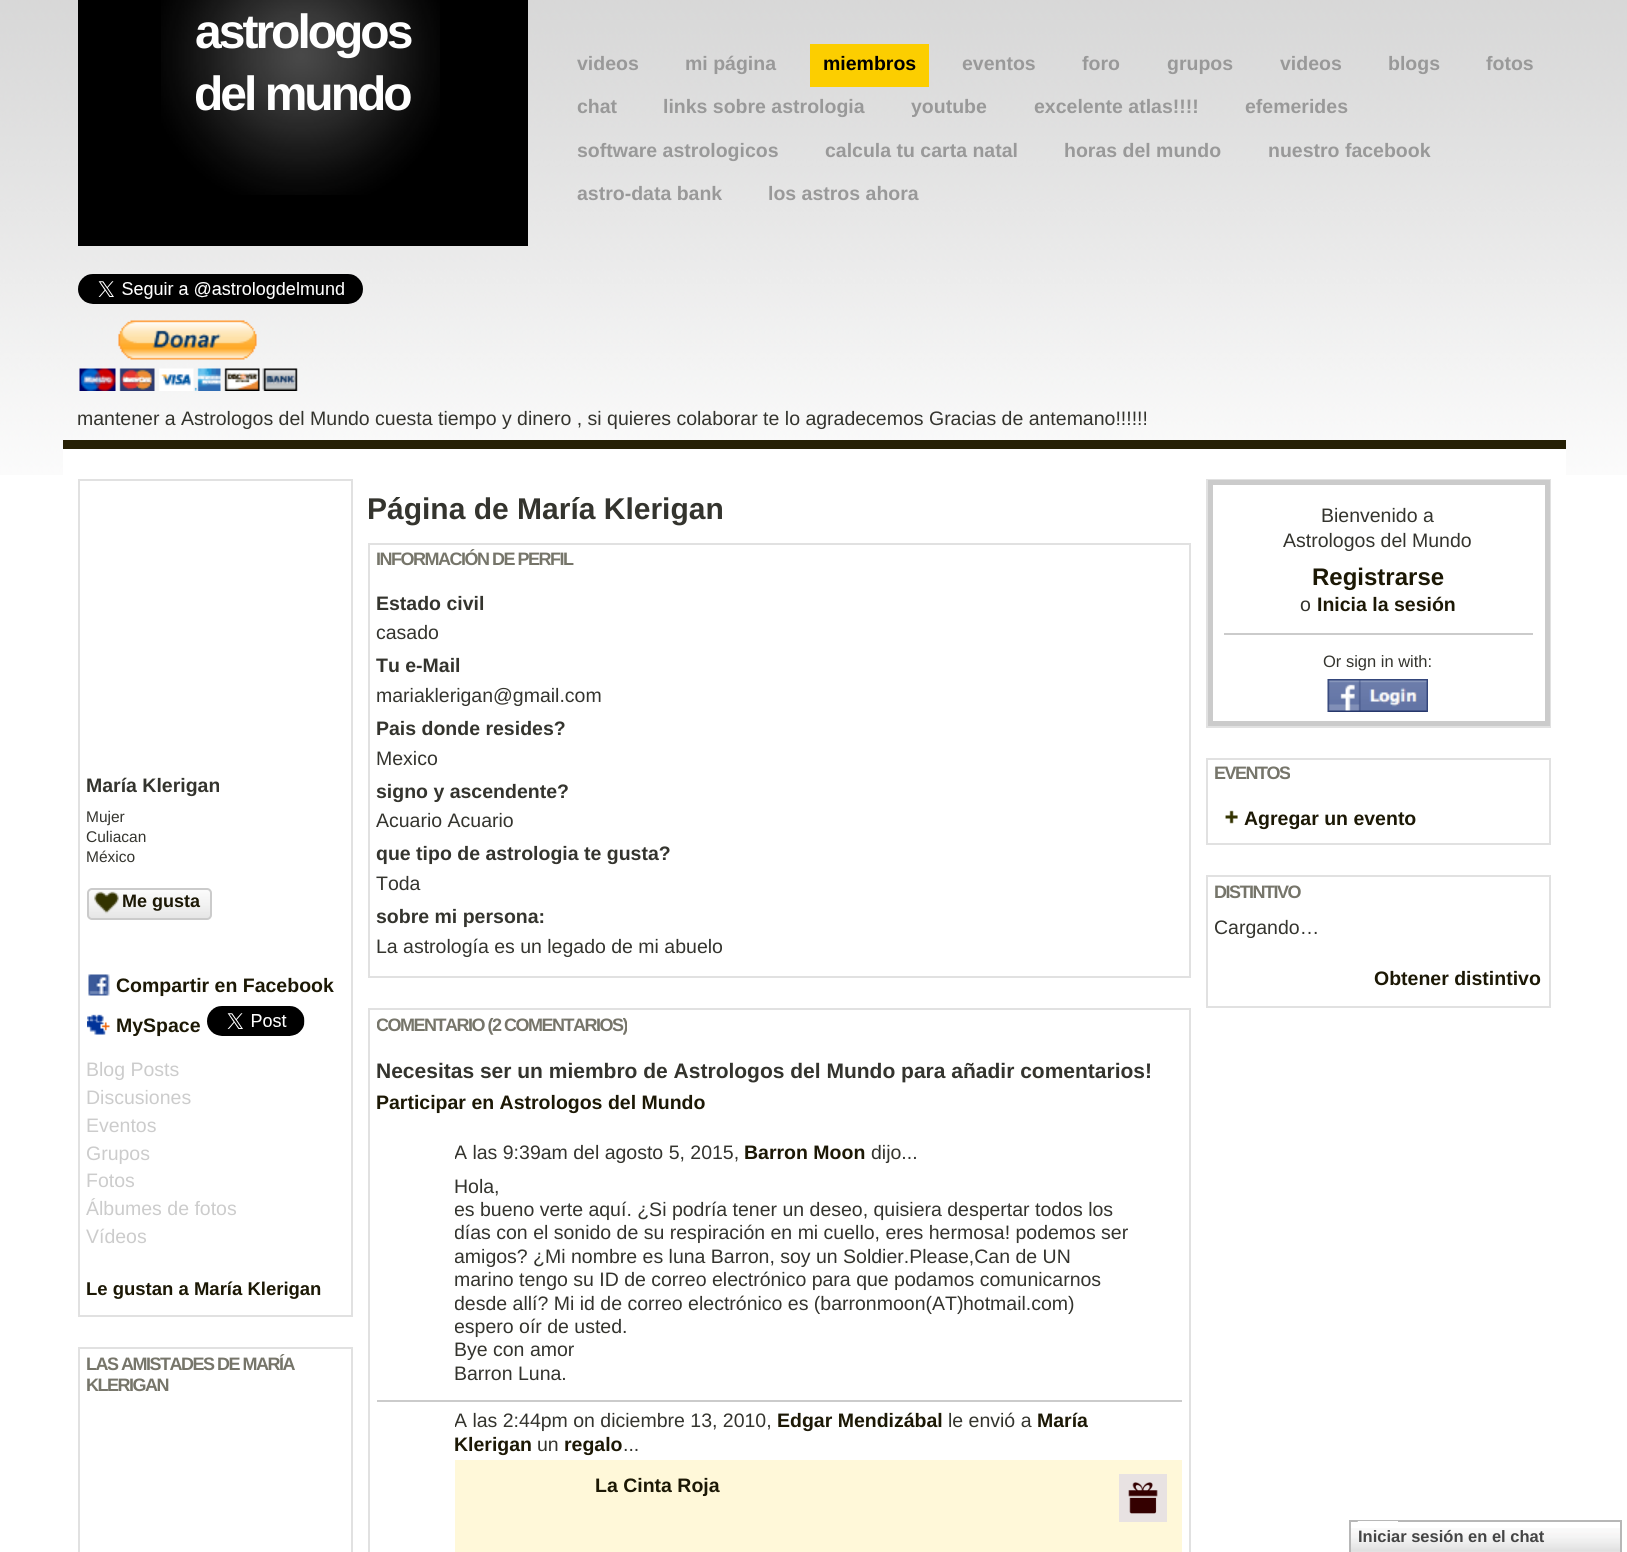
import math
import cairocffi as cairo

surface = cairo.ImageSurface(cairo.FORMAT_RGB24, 1627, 1552)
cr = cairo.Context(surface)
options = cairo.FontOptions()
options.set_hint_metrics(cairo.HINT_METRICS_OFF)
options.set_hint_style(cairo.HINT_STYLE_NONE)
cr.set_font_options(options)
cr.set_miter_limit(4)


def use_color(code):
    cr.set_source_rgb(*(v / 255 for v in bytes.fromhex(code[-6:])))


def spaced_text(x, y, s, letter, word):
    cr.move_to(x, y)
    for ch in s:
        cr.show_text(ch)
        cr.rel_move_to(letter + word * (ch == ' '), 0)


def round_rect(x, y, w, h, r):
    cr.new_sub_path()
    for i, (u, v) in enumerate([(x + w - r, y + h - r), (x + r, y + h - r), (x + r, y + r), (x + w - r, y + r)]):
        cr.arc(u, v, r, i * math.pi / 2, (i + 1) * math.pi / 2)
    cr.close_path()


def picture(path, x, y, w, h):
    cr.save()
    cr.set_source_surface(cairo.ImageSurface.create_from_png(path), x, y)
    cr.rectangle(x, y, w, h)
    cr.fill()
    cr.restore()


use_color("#ffffff")
cr.paint()
picture("img1.png", 0, 0, 1627, 475)
use_color("#000000")
cr.rectangle(78, 0, 450, 246)
cr.fill()
picture("img2.png", 161, 0, 279, 195)
cr.select_font_face("Liberation Sans", cairo.FONT_SLANT_NORMAL, cairo.FONT_WEIGHT_BOLD)
cr.set_font_size(48)
use_color("#ffffff")
spaced_text(195, 48, "astrologos", -3, 0)
spaced_text(194, 110, "del mundo", -3, 0)
cr.set_font_size(19.5)
use_color("#999999")
cr.move_to(577, 70)
cr.show_text("videos")
cr.move_to(685, 70)
cr.show_text("mi página")
use_color("#fcce00")
cr.rectangle(810, 44, 119, 43)
cr.fill()
use_color("#000000")
cr.move_to(823, 70)
cr.show_text("miembros")
use_color("#999999")
cr.move_to(962, 70)
cr.show_text("eventos")
cr.move_to(1082, 70)
cr.show_text("foro")
cr.move_to(1167, 70)
cr.show_text("grupos")
cr.move_to(1280, 70)
cr.show_text("videos")
cr.move_to(1388, 70)
cr.show_text("blogs")
cr.move_to(1486, 70)
cr.show_text("fotos")
cr.move_to(577, 113)
cr.show_text("chat")
cr.move_to(663, 113)
cr.show_text("links sobre astrologia")
cr.move_to(911, 113)
cr.show_text("youtube")
cr.move_to(1034, 113)
cr.show_text("excelente atlas!!!!")
cr.move_to(1245, 113)
cr.show_text("efemerides")
cr.move_to(577, 157)
cr.show_text("software astrologicos")
cr.move_to(825, 157)
cr.show_text("calcula tu carta natal")
cr.move_to(1064, 157)
cr.show_text("horas del mundo")
cr.move_to(1268, 157)
cr.show_text("nuestro facebook")
cr.move_to(577, 200)
cr.show_text("astro-data bank")
cr.move_to(768, 200)
cr.show_text("los astros ahora")
picture("img3.png", 78, 274, 285, 30)
picture("img4.png", 79, 320, 219, 71)
cr.select_font_face("Liberation Sans")
use_color("#34342e")
cr.move_to(77, 425)
cr.show_text("mantener a Astrologos del Mundo cuesta tiempo y dinero , si quieres colaborar te lo agradecemos Gracias de antemano!!!!!!")
use_color("#ffffff")
cr.rectangle(63, 449, 1503, 26)
cr.fill()
use_color("#262005")
cr.rectangle(63, 440, 1503, 9)
cr.fill()
cr.rectangle(79, 480, 273, 836)
use_color("#e1e1e1")
cr.stroke()
cr.select_font_face("Liberation Sans", cairo.FONT_SLANT_NORMAL, cairo.FONT_WEIGHT_BOLD)
use_color("#34342e")
cr.move_to(86, 792)
cr.show_text("María Klerigan")
cr.select_font_face("Liberation Sans")
cr.set_font_size(15.5)
cr.move_to(86, 822)
cr.show_text("Mujer")
cr.move_to(86, 842)
cr.show_text("Culiacan")
cr.move_to(86, 862)
cr.show_text("México")
picture("img5.png", 87, 890, 125, 28)
round_rect(88, 889, 123, 30, 4)
use_color("#cbcbcb")
cr.stroke()
picture("img6.png", 94, 891, 25, 23)
cr.select_font_face("Liberation Sans", cairo.FONT_SLANT_NORMAL, cairo.FONT_WEIGHT_BOLD)
cr.set_font_size(18)
use_color("#1c1805")
cr.move_to(122, 907)
cr.show_text("Me gusta")
picture("img7.png", 88, 974, 22, 22)
cr.set_font_size(19.5)
cr.move_to(116, 992)
cr.show_text("Compartir en Facebook")
picture("img8.png", 87, 1014, 23, 21)
cr.move_to(116, 1032)
cr.show_text("MySpace")
picture("img9.png", 207, 1006, 98, 30)
cr.select_font_face("Liberation Sans")
use_color("#cccccc")
cr.move_to(86, 1076)
cr.show_text("Blog Posts")
cr.move_to(86, 1104)
cr.show_text("Discusiones")
cr.move_to(86, 1132)
cr.show_text("Eventos")
cr.move_to(86, 1160)
cr.show_text("Grupos")
cr.move_to(86, 1187)
cr.show_text("Fotos")
cr.move_to(86, 1215)
cr.show_text("Álbumes de fotos")
cr.move_to(86, 1243)
cr.show_text("Vídeos")
cr.select_font_face("Liberation Sans", cairo.FONT_SLANT_NORMAL, cairo.FONT_WEIGHT_BOLD)
cr.set_font_size(18.5)
use_color("#1c1805")
cr.move_to(86, 1295)
cr.show_text("Le gustan a María Klerigan")
cr.rectangle(79, 1348, 273, 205)
use_color("#e1e1e1")
cr.stroke()
cr.set_font_size(18)
use_color("#76756a")
spaced_text(86, 1370, "LAS AMISTADES DE MARÍA", -1.5, 0)
spaced_text(86, 1391, "KLERIGAN", -1.5, 0)
cr.set_font_size(30)
use_color("#34342e")
cr.move_to(367, 519)
cr.show_text("Página de María Klerigan")
cr.rectangle(369, 544, 821, 433)
use_color("#e1e1e1")
cr.stroke()
cr.set_font_size(18)
use_color("#76756a")
spaced_text(376, 565, "INFORMACIÓN DE PERFIL", -1.5, 0)
cr.set_font_size(19.5)
use_color("#34342e")
cr.move_to(376, 610)
cr.show_text("Estado civil")
cr.select_font_face("Liberation Sans")
cr.move_to(376, 639)
cr.show_text("casado")
cr.select_font_face("Liberation Sans", cairo.FONT_SLANT_NORMAL, cairo.FONT_WEIGHT_BOLD)
cr.move_to(376, 672)
cr.show_text("Tu e-Mail")
cr.select_font_face("Liberation Sans")
cr.move_to(376, 702)
cr.show_text("mariaklerigan@gmail.com")
cr.select_font_face("Liberation Sans", cairo.FONT_SLANT_NORMAL, cairo.FONT_WEIGHT_BOLD)
cr.move_to(376, 735)
cr.show_text("Pais donde resides?")
cr.select_font_face("Liberation Sans")
cr.move_to(376, 765)
cr.show_text("Mexico")
cr.select_font_face("Liberation Sans", cairo.FONT_SLANT_NORMAL, cairo.FONT_WEIGHT_BOLD)
cr.move_to(376, 798)
cr.show_text("signo y ascendente?")
cr.select_font_face("Liberation Sans")
cr.move_to(376, 827)
cr.show_text("Acuario Acuario")
cr.select_font_face("Liberation Sans", cairo.FONT_SLANT_NORMAL, cairo.FONT_WEIGHT_BOLD)
cr.move_to(376, 860)
cr.show_text("que tipo de astrologia te gusta?")
cr.select_font_face("Liberation Sans")
cr.move_to(376, 890)
cr.show_text("Toda")
cr.select_font_face("Liberation Sans", cairo.FONT_SLANT_NORMAL, cairo.FONT_WEIGHT_BOLD)
cr.move_to(376, 923)
cr.show_text("sobre mi persona:")
cr.select_font_face("Liberation Sans")
cr.move_to(376, 953)
cr.show_text("La astrología es un legado de mi abuelo")
cr.rectangle(369, 1009, 821, 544)
use_color("#e1e1e1")
cr.stroke()
cr.save()
cr.rectangle(377, 1014, 250, 21)
cr.clip()
cr.select_font_face("Liberation Sans", cairo.FONT_SLANT_NORMAL, cairo.FONT_WEIGHT_BOLD)
cr.set_font_size(18)
use_color("#76756a")
spaced_text(376, 1031, "COMENTARIO (2 COMENTARIOS)", -1.5, 0)
cr.restore()
cr.select_font_face("Liberation Sans", cairo.FONT_SLANT_NORMAL, cairo.FONT_WEIGHT_BOLD)
cr.set_font_size(21)
use_color("#34342e")
cr.move_to(376, 1078)
cr.show_text("Necesitas ser un miembro de Astrologos del Mundo para añadir comentarios!")
cr.set_font_size(19.5)
use_color("#1c1805")
cr.move_to(376, 1109)
cr.show_text("Participar en Astrologos del Mundo")
use_color("#cbcbcb")
cr.rectangle(377, 1400, 805, 2)
cr.fill()
cr.save()
cr.rectangle(455, 1142, 675, 22)
cr.clip()
cr.select_font_face("Liberation Sans")
use_color("#34342e")
cr.move_to(454, 1159)
cr.show_text("A las 9:39am del agosto 5, 2015,")
cr.restore()
use_color("#1c1805")
cr.move_to(744, 1159)
cr.show_text("Barron Moon")
cr.select_font_face("Liberation Sans")
use_color("#34342e")
cr.move_to(871, 1159)
cr.show_text("dijo...")
cr.move_to(454, 1193)
cr.show_text("Hola,")
cr.save()
cr.rectangle(455, 1167, 675, 225)
cr.clip()
cr.move_to(454, 1216)
cr.show_text("es bueno verte aquí. ¿Si podría tener un deseo, quisiera despertar todos los")
cr.move_to(454, 1239)
cr.show_text("días con el sonido de su respiración en mi cuello, eres hermosa! podemos ser")
cr.move_to(454, 1263)
cr.show_text("amigos? ¿Mi nombre es luna Barron, soy un Soldier.Please,Can de UN")
cr.restore()
cr.move_to(454, 1286)
cr.show_text("marino tengo su ID de correo electrónico para que podamos comunicarnos")
cr.save()
cr.rectangle(455, 1167, 675, 225)
cr.clip()
cr.move_to(454, 1310)
cr.show_text("desde allí? Mi id de correo electrónico es (barronmoon(AT)")
cr.restore()
cr.move_to(963, 1310)
cr.show_text("hotmail.com)")
cr.save()
cr.rectangle(455, 1167, 675, 225)
cr.clip()
cr.move_to(454, 1333)
cr.show_text("espero oír de usted.")
cr.restore()
cr.move_to(454, 1356)
cr.show_text("Bye con amor")
cr.move_to(454, 1380)
cr.show_text("Barron Luna.")
cr.save()
cr.rectangle(455, 1409, 675, 48)
cr.clip()
cr.move_to(454, 1427)
cr.show_text("A las 2:44pm on diciembre 13, 2010,")
cr.restore()
cr.select_font_face("Liberation Sans", cairo.FONT_SLANT_NORMAL, cairo.FONT_WEIGHT_BOLD)
use_color("#1c1805")
cr.move_to(777, 1427)
cr.show_text("Edgar Mendizábal")
cr.select_font_face("Liberation Sans")
use_color("#34342e")
cr.move_to(948, 1427)
cr.show_text("le envió a")
cr.select_font_face("Liberation Sans", cairo.FONT_SLANT_NORMAL, cairo.FONT_WEIGHT_BOLD)
use_color("#1c1805")
cr.move_to(1037, 1427)
cr.show_text("María")
cr.move_to(454, 1451)
cr.show_text("Klerigan")
cr.select_font_face("Liberation Sans")
use_color("#34342e")
cr.move_to(537, 1451)
cr.show_text("un")
cr.select_font_face("Liberation Sans", cairo.FONT_SLANT_NORMAL, cairo.FONT_WEIGHT_BOLD)
use_color("#1c1805")
cr.move_to(564, 1451)
cr.show_text("regalo")
cr.select_font_face("Liberation Sans")
use_color("#34342e")
cr.move_to(623, 1451)
cr.show_text("...")
use_color("#fff8d9")
cr.rectangle(455, 1460, 727, 92)
cr.fill()
cr.select_font_face("Liberation Sans", cairo.FONT_SLANT_NORMAL, cairo.FONT_WEIGHT_BOLD)
use_color("#1c1805")
cr.move_to(595, 1492)
cr.show_text("La Cinta Roja")
picture("img10.png", 1119, 1474, 48, 48)
cr.rectangle(1207, 480, 343, 247)
use_color("#e1e1e1")
cr.stroke()
cr.rectangle(1210.5, 482.5, 337, 241)
use_color("#cbcbcb")
cr.set_line_width(5)
cr.stroke()
cr.select_font_face("Liberation Sans")
use_color("#34342e")
cr.move_to(1321, 522)
cr.show_text("Bienvenido a")
cr.move_to(1283, 547)
cr.show_text("Astrologos del Mundo")
cr.select_font_face("Liberation Sans", cairo.FONT_SLANT_NORMAL, cairo.FONT_WEIGHT_BOLD)
cr.set_font_size(24)
use_color("#1c1805")
cr.move_to(1312, 585)
cr.show_text("Registrarse")
cr.select_font_face("Liberation Sans")
cr.set_font_size(19.5)
use_color("#34342e")
cr.move_to(1300, 611)
cr.show_text("o")
cr.select_font_face("Liberation Sans", cairo.FONT_SLANT_NORMAL, cairo.FONT_WEIGHT_BOLD)
use_color("#1c1805")
cr.move_to(1317, 611)
cr.show_text("Inicia la sesión")
use_color("#cbcbcb")
cr.rectangle(1224, 633, 309, 2)
cr.fill()
cr.select_font_face("Liberation Sans")
cr.set_font_size(16.5)
use_color("#34342e")
cr.move_to(1323, 667)
cr.show_text("Or sign in with:")
picture("img11.png", 1327, 679, 101, 33)
cr.rectangle(1207, 759, 343, 85)
use_color("#e1e1e1")
cr.set_line_width(2)
cr.stroke()
cr.save()
cr.rectangle(1215, 764, 75, 21)
cr.clip()
cr.select_font_face("Liberation Sans", cairo.FONT_SLANT_NORMAL, cairo.FONT_WEIGHT_BOLD)
cr.set_font_size(18)
use_color("#76756a")
spaced_text(1214, 779, "EVENTOS", -1.5, 0)
cr.restore()
picture("img12.png", 1225, 810, 13, 14)
cr.select_font_face("Liberation Sans", cairo.FONT_SLANT_NORMAL, cairo.FONT_WEIGHT_BOLD)
cr.set_font_size(19.5)
use_color("#1c1805")
cr.move_to(1244, 825)
cr.show_text("Agregar un evento")
cr.rectangle(1207, 876, 343, 131)
use_color("#e1e1e1")
cr.stroke()
cr.set_font_size(18)
use_color("#76756a")
spaced_text(1214, 898, "DISTINTIVO", -1.5, 0)
cr.select_font_face("Liberation Sans")
cr.set_font_size(19.5)
use_color("#34342e")
cr.move_to(1214, 934)
cr.show_text("Cargando…")
cr.select_font_face("Liberation Sans", cairo.FONT_SLANT_NORMAL, cairo.FONT_WEIGHT_BOLD)
use_color("#1c1805")
cr.move_to(1374, 985)
cr.show_text("Obtener distintivo")
picture("img13.png", 1351, 1528, 269, 24)
cr.rectangle(1350, 1521, 271, 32)
use_color("#b7b7b7")
cr.stroke()
picture("img14.png", 1357, 1521, 41, 1)
cr.set_font_size(16.5)
use_color("#454545")
cr.move_to(1358, 1542)
cr.show_text("Iniciar sesión en el chat")
surface.write_to_png("result.png")
